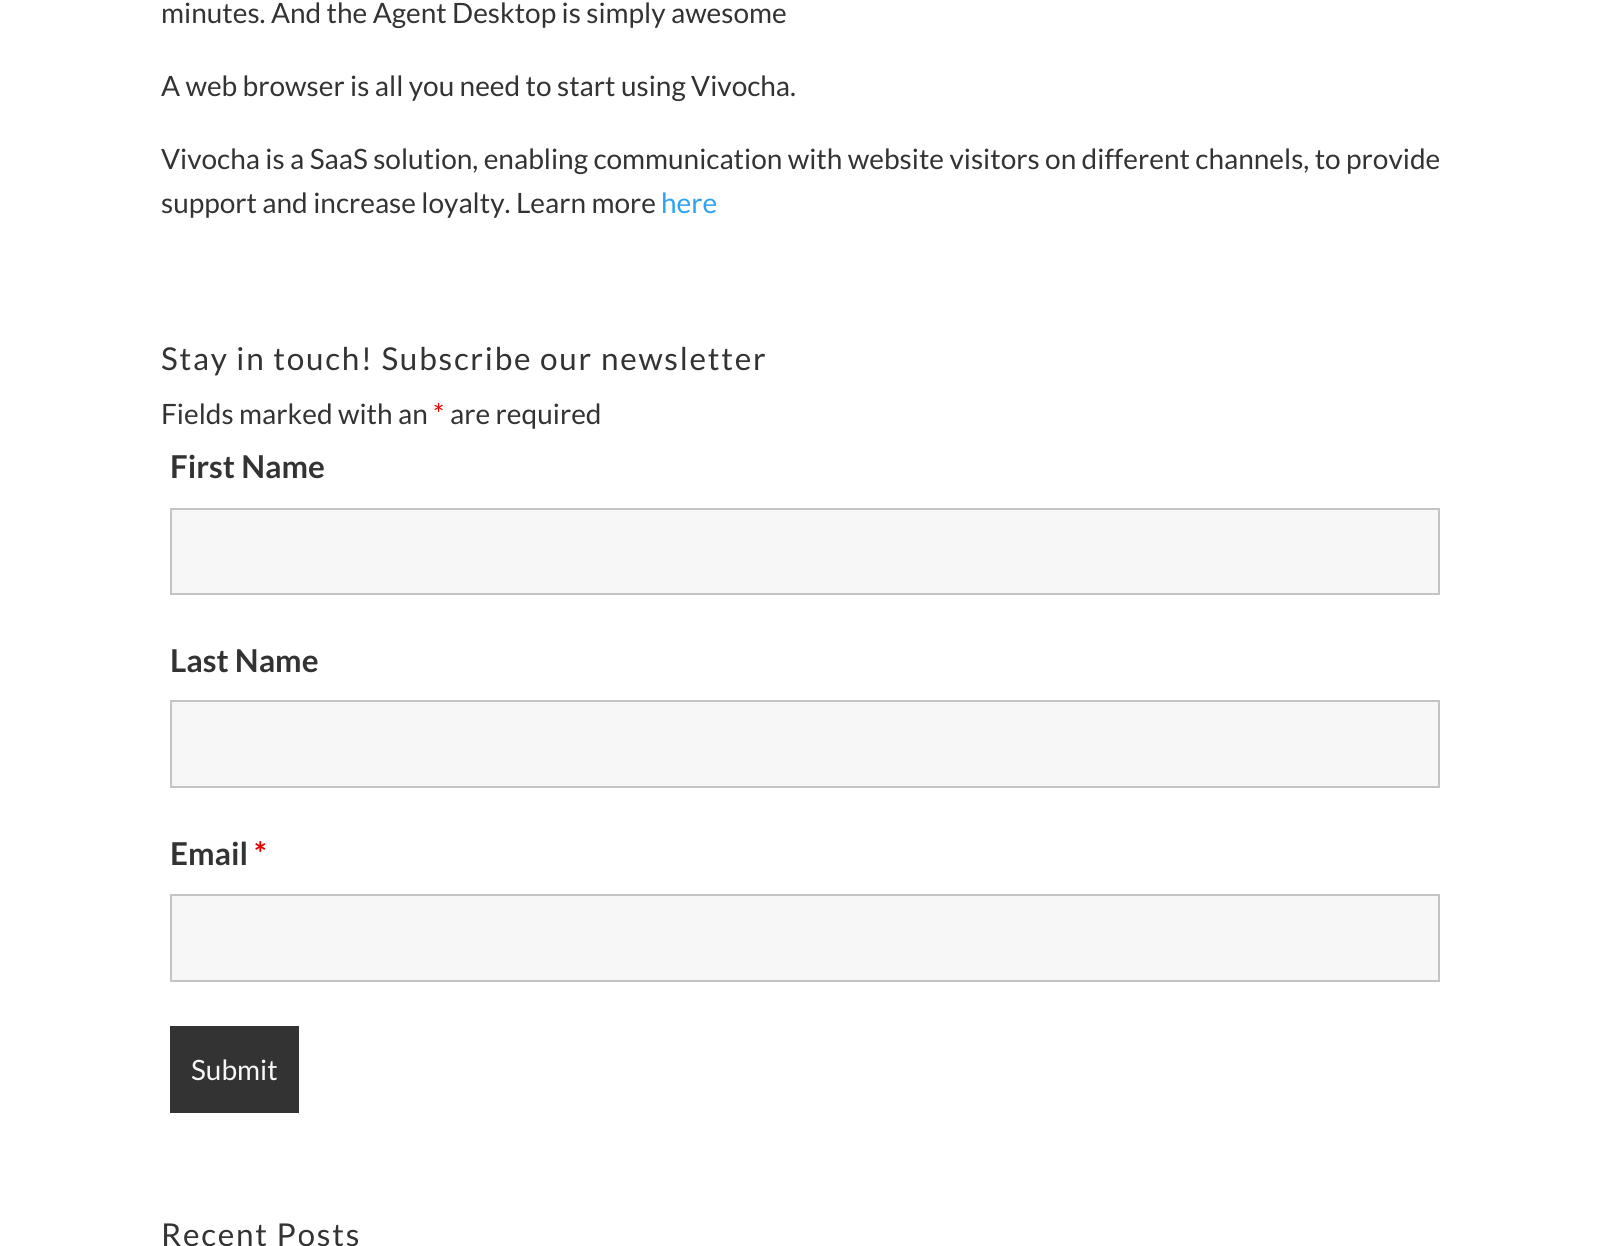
import math
import cairocffi as cairo

surface = cairo.ImageSurface(cairo.FORMAT_RGB24, 1610, 1246)
cr = cairo.Context(surface)
options = cairo.FontOptions()
options.set_hint_metrics(cairo.HINT_METRICS_OFF)
options.set_hint_style(cairo.HINT_STYLE_NONE)
cr.set_font_options(options)
cr.set_miter_limit(4)


def use_color(code):
    cr.set_source_rgb(*(v / 255 for v in bytes.fromhex(code[-6:])))


def spaced_text(x, y, s, letter, word):
    cr.move_to(x, y)
    for ch in s:
        cr.show_text(ch)
        cr.rel_move_to(letter + word * (ch == ' '), 0)


use_color("#ffffff")
cr.paint()
cr.select_font_face("Lato")
cr.set_font_size(28)
use_color("#333333")
cr.move_to(161, 23)
cr.show_text("minutes. And the Agent Desktop is simply awesome")
cr.move_to(161, 96)
cr.show_text("A web browser is all you need to start using Vivocha.")
cr.move_to(161, 169)
cr.show_text("Vivocha is a SaaS solution, enabling communication with website visitors on different channels, to provide")
cr.move_to(161, 213)
cr.show_text("support and increase loyalty. Learn more")
use_color("#2ea3f2")
cr.move_to(661, 213)
cr.show_text("here")
cr.set_font_size(31.5)
use_color("#333333")
spaced_text(161, 370, "Stay in touch! Subscribe our newsletter", 1.75, 0)
cr.set_font_size(28)
cr.move_to(161, 424)
cr.show_text("Fields marked with an")
use_color("#e80000")
cr.move_to(433, 424)
cr.show_text("*")
use_color("#333333")
cr.move_to(450, 424)
cr.show_text("are required")
cr.select_font_face("Lato", cairo.FONT_SLANT_NORMAL, cairo.FONT_WEIGHT_BOLD)
cr.set_font_size(31.5)
cr.move_to(170, 478)
cr.show_text("First Name")
use_color("#f7f7f7")
cr.rectangle(171, 509, 1268, 85)
cr.fill_preserve()
use_color("#c4c4c4")
cr.stroke()
use_color("#333333")
cr.move_to(170, 672)
cr.show_text("Last Name")
use_color("#f7f7f7")
cr.rectangle(171, 701, 1268, 86)
cr.fill_preserve()
use_color("#c4c4c4")
cr.stroke()
use_color("#333333")
cr.move_to(170, 865)
cr.show_text("Email")
use_color("#e80000")
cr.move_to(254, 865)
cr.show_text("*")
use_color("#f7f7f7")
cr.rectangle(171, 895, 1268, 86)
cr.fill_preserve()
use_color("#c4c4c4")
cr.stroke()
use_color("#333333")
cr.rectangle(170, 1026, 129, 87)
cr.fill()
cr.select_font_face("Lato")
cr.set_font_size(28)
use_color("#f7f7f7")
cr.move_to(191, 1080)
cr.show_text("Submit")
cr.set_font_size(31.5)
use_color("#333333")
spaced_text(161, 1246, "Recent Posts", 1.75, 0)
surface.write_to_png("result.png")
